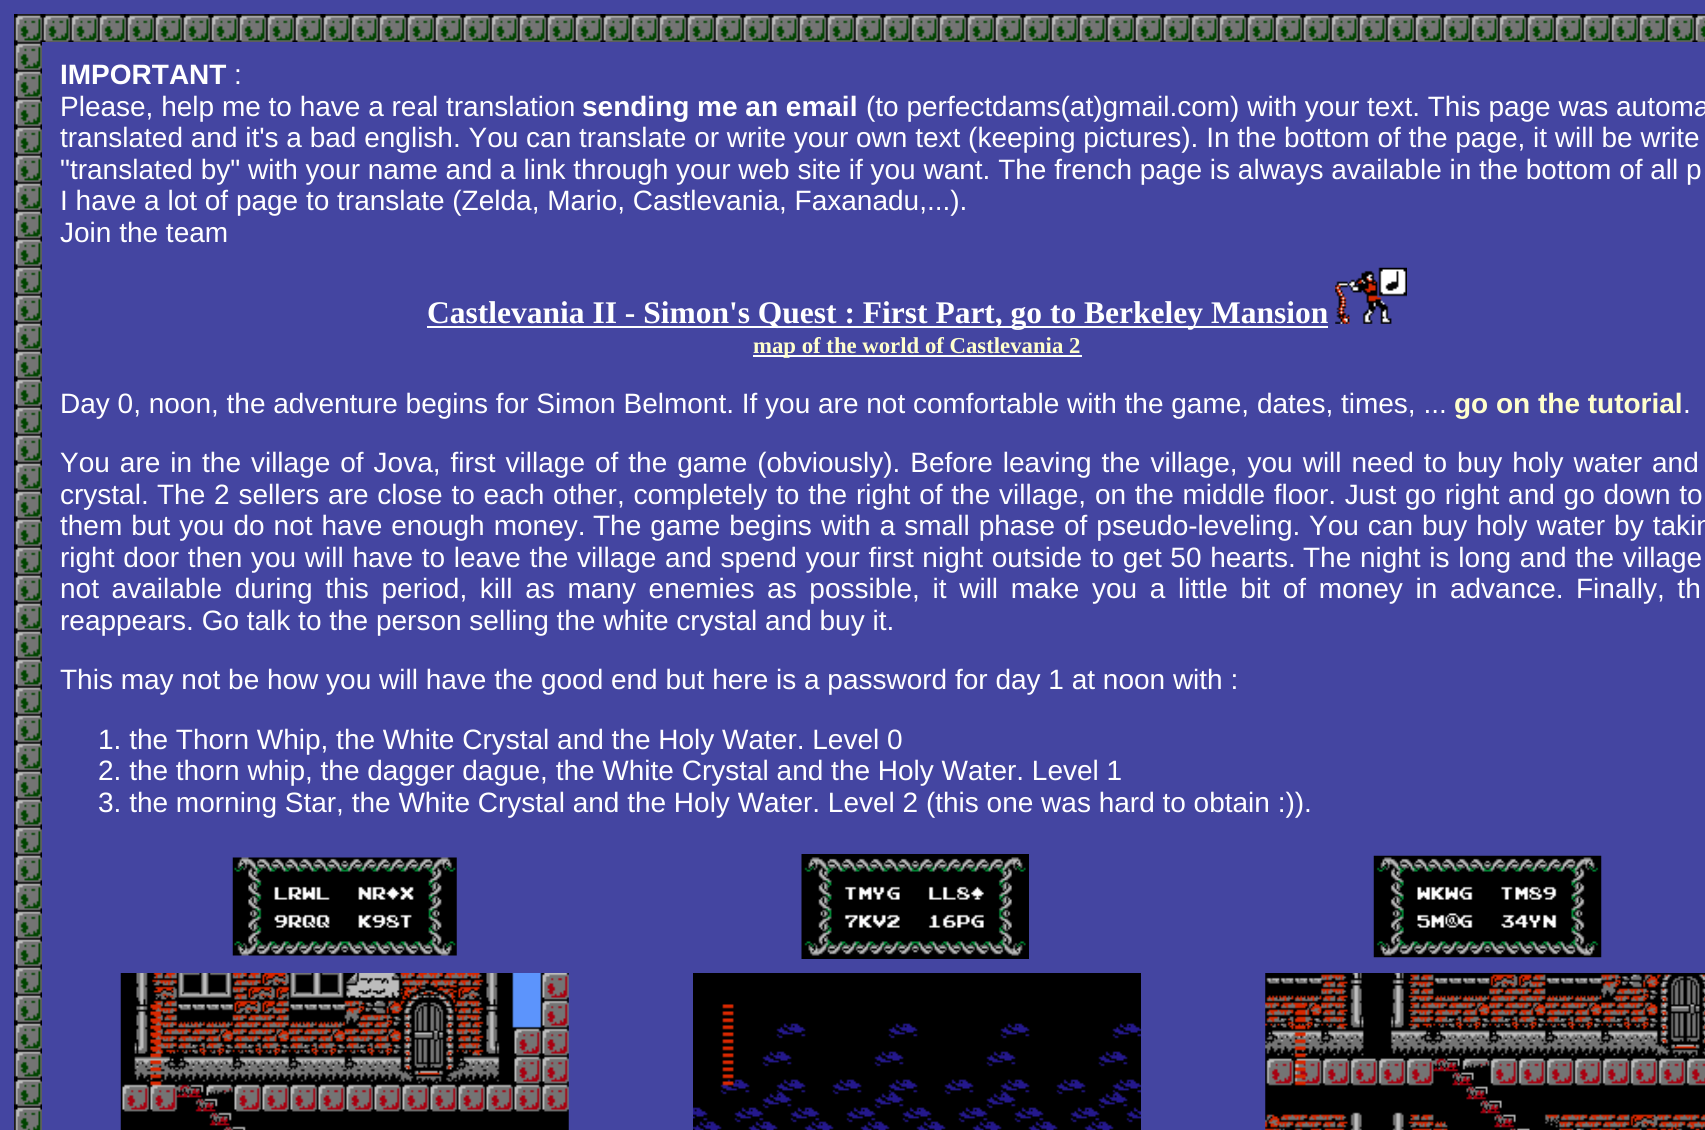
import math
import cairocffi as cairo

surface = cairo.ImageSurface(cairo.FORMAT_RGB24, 1705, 1130)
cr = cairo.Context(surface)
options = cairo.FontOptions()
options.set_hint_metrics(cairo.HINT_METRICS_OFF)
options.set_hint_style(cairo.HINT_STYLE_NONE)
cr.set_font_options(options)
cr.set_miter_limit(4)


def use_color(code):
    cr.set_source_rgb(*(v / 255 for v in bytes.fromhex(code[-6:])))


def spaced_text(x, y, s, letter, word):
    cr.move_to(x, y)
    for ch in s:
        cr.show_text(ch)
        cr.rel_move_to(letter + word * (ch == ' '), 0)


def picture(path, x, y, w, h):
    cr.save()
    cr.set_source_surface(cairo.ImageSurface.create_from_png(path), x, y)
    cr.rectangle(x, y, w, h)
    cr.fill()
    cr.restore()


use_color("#4445a1")
cr.paint()
picture("img1.png", 14, 14, 1691, 1116)
use_color("#4445a1")
cr.rectangle(42, 42, 1663, 1088)
cr.fill()
cr.select_font_face("Liberation Sans", cairo.FONT_SLANT_NORMAL, cairo.FONT_WEIGHT_BOLD)
cr.set_font_size(28)
use_color("#ffffff")
cr.move_to(60, 84)
cr.show_text("IMPORTANT")
cr.select_font_face("Liberation Sans")
cr.move_to(234, 84)
cr.show_text(":")
cr.move_to(60, 116)
cr.show_text("Please, help me to have a real translation")
cr.select_font_face("Liberation Sans", cairo.FONT_SLANT_NORMAL, cairo.FONT_WEIGHT_BOLD)
cr.move_to(582, 116)
cr.show_text("sending me an email")
cr.select_font_face("Liberation Sans")
cr.move_to(866, 116)
cr.show_text("(to perfectdams(at)gmail.com) with your text. This page was automa")
cr.move_to(60, 147)
cr.show_text("translated and it's a bad english. You can translate or write your own text (keeping pictures). In the bottom of the page, it will be write")
cr.move_to(60, 179)
cr.show_text("\"translated by\" with your name and a link through your web site if you want. The french page is always available in the bottom of all p")
cr.move_to(60, 210)
cr.show_text("I have a lot of page to translate (Zelda, Mario, Castlevania, Faxanadu,...).")
cr.move_to(60, 242)
cr.show_text("Join the team")
cr.rectangle(427, 326, 901, 2)
cr.fill()
cr.select_font_face("Liberation Serif", cairo.FONT_SLANT_NORMAL, cairo.FONT_WEIGHT_BOLD)
cr.set_font_size(31.5)
cr.move_to(427, 323)
cr.show_text("Castlevania II - Simon's Quest : First Part, go to Berkeley Mansion")
picture("img2.png", 1335, 267, 72, 57)
cr.rectangle(753, 355, 329, 2)
cr.fill()
cr.set_font_size(22.75)
use_color("#ffffcc")
cr.move_to(753, 353)
cr.show_text("map of the world of Castlevania 2")
cr.select_font_face("Liberation Sans")
cr.set_font_size(28)
use_color("#ffffff")
cr.move_to(60, 413)
cr.show_text("Day 0, noon, the adventure begins for Simon Belmont. If you are not comfortable with the game, dates, times, ...")
cr.select_font_face("Liberation Sans", cairo.FONT_SLANT_NORMAL, cairo.FONT_WEIGHT_BOLD)
use_color("#ffffcc")
cr.move_to(1454, 413)
cr.show_text("go on the tutorial")
cr.select_font_face("Liberation Sans")
use_color("#ffffff")
cr.move_to(1683, 413)
cr.show_text(".")
spaced_text(60, 472, "You are in the village of Jova, first village of the game (obviously). Before leaving the village, you will need to buy holy water and", 0, 2.2)
cr.move_to(60, 504)
cr.show_text("crystal.")
spaced_text(157, 504, "The 2 sellers are close to each other, completely to the right of the village, on the middle floor. Just go right and go down to", 0, 1)
spaced_text(60, 535, "them but you do not have enough money.", 0, 1.25)
spaced_text(593, 535, "The game begins with a small phase of pseudo-leveling.", 0, 1.25)
spaced_text(1309, 535, "You can buy holy water by takin", 0, 1.25)
spaced_text(60, 567, "right door then you will have to leave the village and spend your first night outside to get 50 hearts.", 0, 0.9)
spaced_text(1303, 567, "The night is long and the village", 0, 0.9)
spaced_text(60, 598, "not available during this period, kill as many enemies as possible, it will make you a little bit of money in advance.", 0, 4.9)
spaced_text(1576, 598, "Finally, th", 0, 4.9)
cr.move_to(60, 630)
cr.show_text("reappears. Go talk to the person selling the white crystal and buy it.")
cr.move_to(60, 689)
cr.show_text("This may not be how you will have the good end but here is a password for day 1 at noon with :")
cr.move_to(98, 749)
cr.show_text("1. the Thorn Whip, the White Crystal and the Holy Water. Level 0")
cr.move_to(98, 780)
cr.show_text("2. the thorn whip, the dagger dague, the White Crystal and the Holy Water. Level 1")
cr.move_to(98, 812)
cr.show_text("3. the morning Star, the White Crystal and the Holy Water. Level 2 (this one was hard to obtain :)).")
picture("img3.png", 232, 857, 225, 99)
picture("img4.png", 801, 854, 228, 105)
picture("img5.png", 1373, 855, 229, 103)
picture("img6.png", 120, 973, 449, 157)
picture("img7.png", 693, 973, 448, 157)
picture("img8.png", 1265, 973, 440, 157)
surface.write_to_png("result.png")
